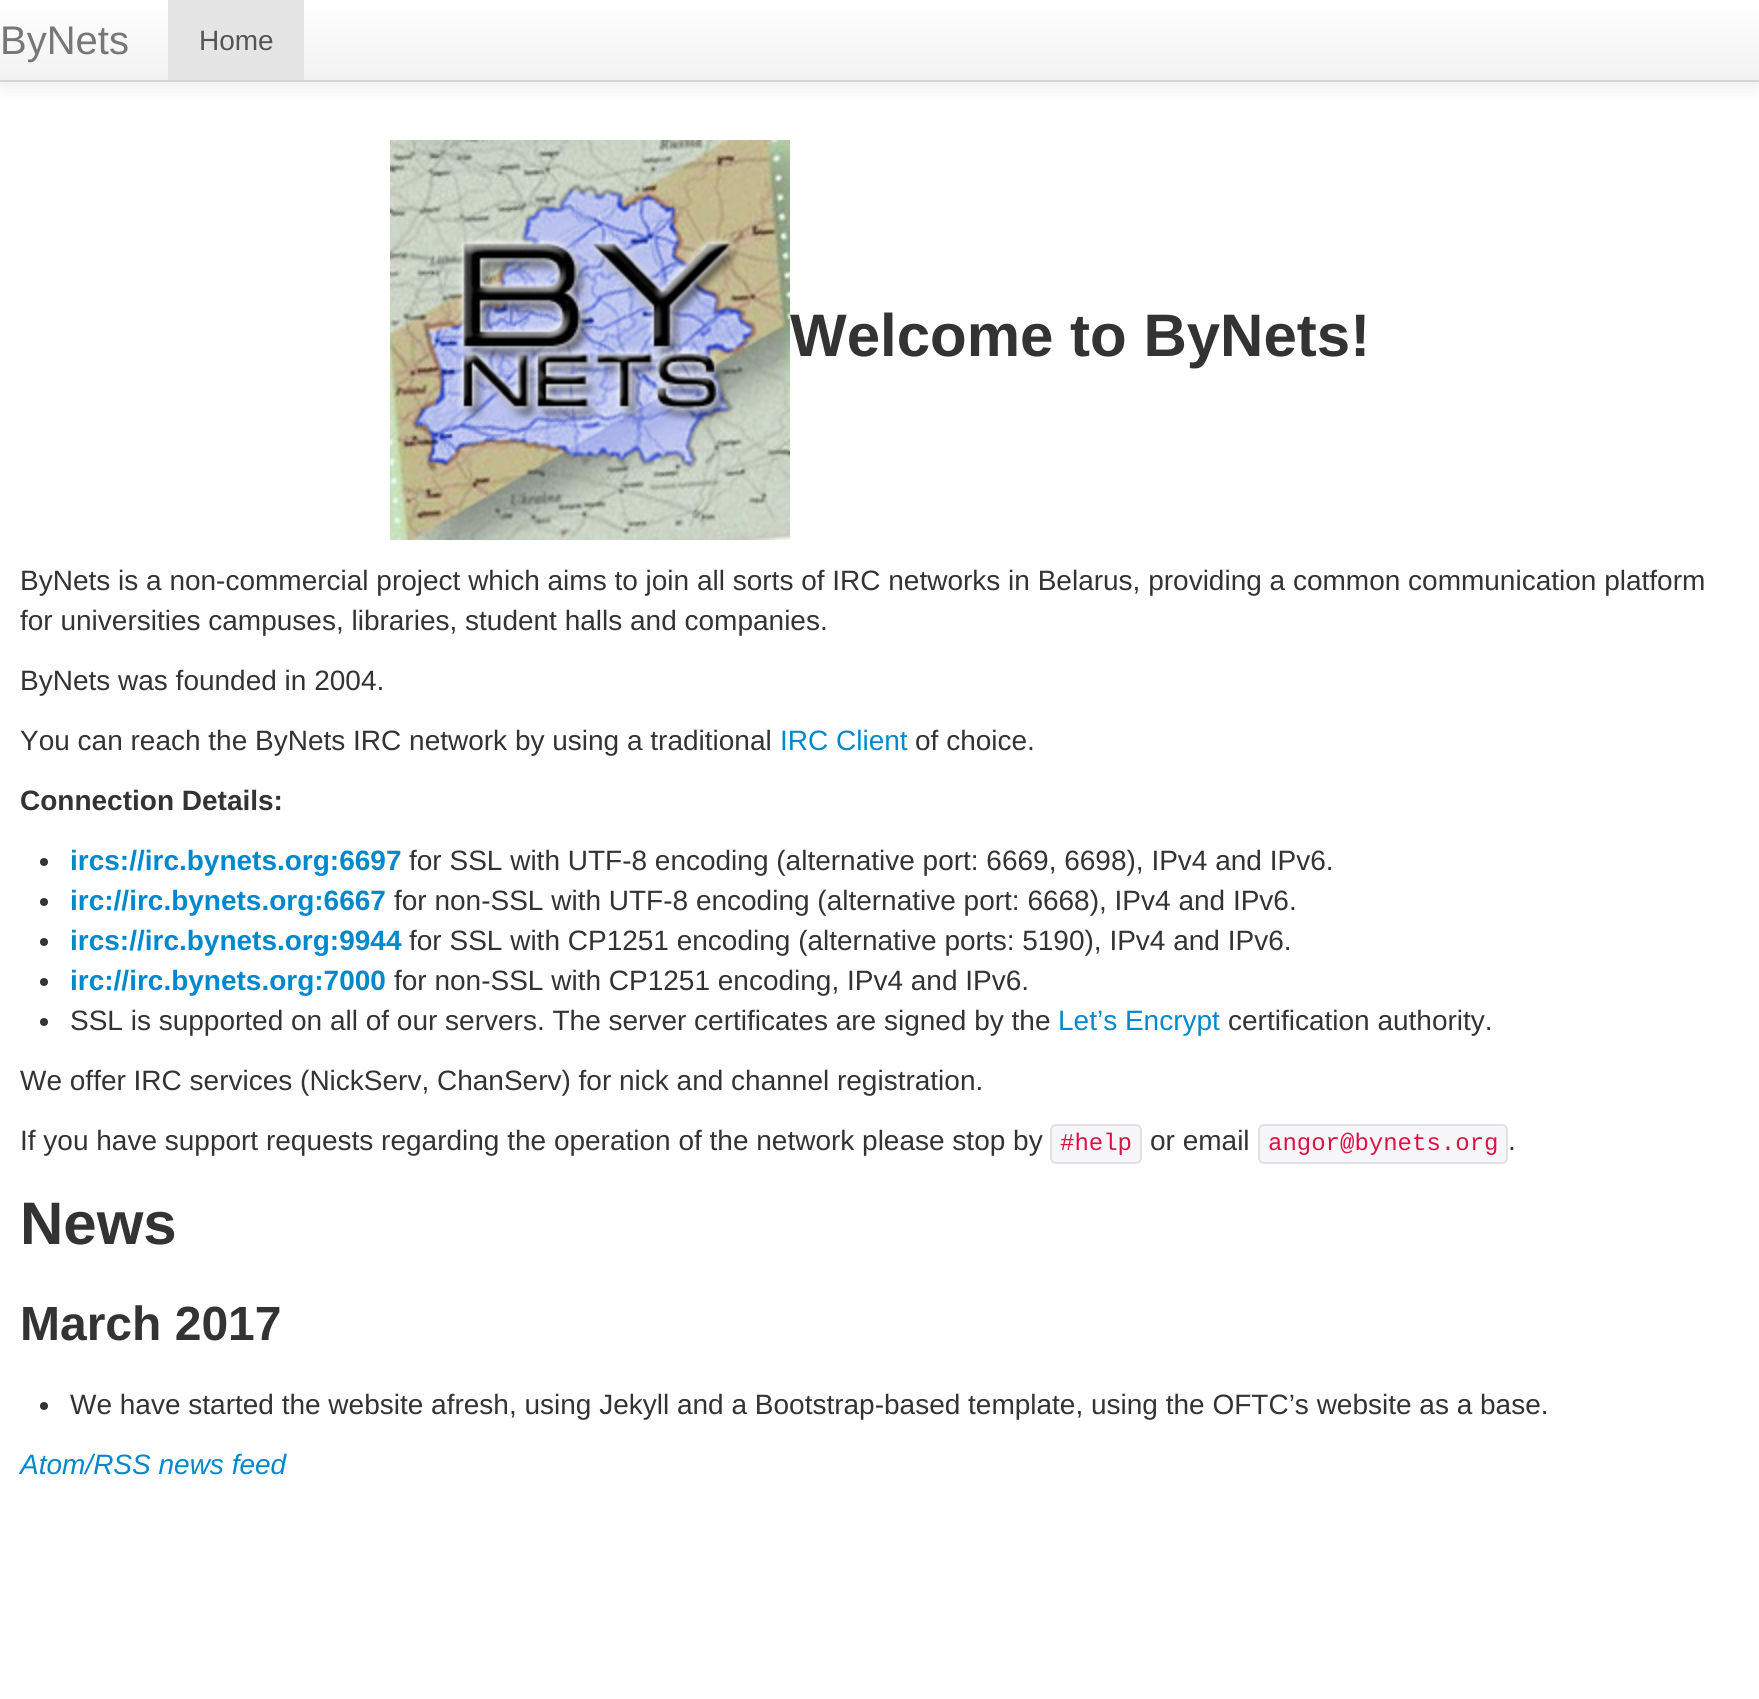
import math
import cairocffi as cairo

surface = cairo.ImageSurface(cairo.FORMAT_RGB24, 1759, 1699)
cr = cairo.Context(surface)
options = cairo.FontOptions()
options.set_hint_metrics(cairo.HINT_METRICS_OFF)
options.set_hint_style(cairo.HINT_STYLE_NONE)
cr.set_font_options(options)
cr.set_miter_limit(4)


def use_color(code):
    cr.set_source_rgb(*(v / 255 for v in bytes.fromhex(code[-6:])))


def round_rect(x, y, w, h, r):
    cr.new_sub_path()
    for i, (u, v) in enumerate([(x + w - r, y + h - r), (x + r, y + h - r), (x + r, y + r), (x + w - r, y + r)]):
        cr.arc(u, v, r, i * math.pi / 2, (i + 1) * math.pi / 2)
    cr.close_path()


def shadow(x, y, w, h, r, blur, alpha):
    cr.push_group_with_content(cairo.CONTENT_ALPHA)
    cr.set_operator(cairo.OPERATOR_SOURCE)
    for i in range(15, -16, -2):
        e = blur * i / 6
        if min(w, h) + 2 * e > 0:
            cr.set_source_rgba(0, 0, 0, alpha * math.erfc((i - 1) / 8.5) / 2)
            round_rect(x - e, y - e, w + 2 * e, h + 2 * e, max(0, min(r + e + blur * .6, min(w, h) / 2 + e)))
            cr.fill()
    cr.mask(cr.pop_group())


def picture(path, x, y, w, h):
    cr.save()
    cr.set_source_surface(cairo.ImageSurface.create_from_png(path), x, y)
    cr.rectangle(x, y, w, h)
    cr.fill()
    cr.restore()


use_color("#ffffff")
cr.paint()
use_color("#000000")
shadow(0, 2, 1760, 82, 0, 10, 0.1)
gradient = cairo.LinearGradient(880, 0, 880, 80)
gradient.add_color_stop_rgba(0, 1, 1, 1, 1)
gradient.add_color_stop_rgba(1, 0.949, 0.949, 0.949, 1)
cr.set_source(gradient)
cr.rectangle(0, 0, 1759, 80)
cr.fill()
use_color("#d4d4d4")
cr.rectangle(0, 80, 1759, 2)
cr.fill()
cr.select_font_face("Liberation Sans")
cr.set_font_size(40)
use_color("#777777")
cr.move_to(0, 54)
cr.show_text("ByNets")
use_color("#e5e5e5")
cr.rectangle(168, 0, 136, 80)
cr.fill()
cr.set_font_size(28)
use_color("#555555")
cr.move_to(199, 50)
cr.show_text("Home")
picture("img1.png", 390, 140, 400, 400)
cr.select_font_face("Liberation Sans", cairo.FONT_SLANT_NORMAL, cairo.FONT_WEIGHT_BOLD)
cr.set_font_size(60)
use_color("#333333")
cr.move_to(790, 356)
cr.show_text("Welcome to ByNets!")
cr.select_font_face("Liberation Sans")
cr.set_font_size(28)
cr.move_to(20, 590)
cr.show_text("ByNets is a non-commercial project which aims to join all sorts of IRC networks in Belarus, providing a common communication platform")
cr.move_to(20, 630)
cr.show_text("for universities campuses, libraries, student halls and companies.")
cr.move_to(20, 690)
cr.show_text("ByNets was founded in 2004.")
cr.move_to(20, 750)
cr.show_text("You can reach the ByNets IRC network by using a traditional")
use_color("#0088cc")
cr.move_to(780, 750)
cr.show_text("IRC Client")
use_color("#333333")
cr.move_to(915, 750)
cr.show_text("of choice.")
cr.select_font_face("Liberation Sans", cairo.FONT_SLANT_NORMAL, cairo.FONT_WEIGHT_BOLD)
cr.move_to(20, 810)
cr.show_text("Connection Details:")
cr.new_path()
cr.arc(44, 862, 4, 0, 2 * math.pi)
cr.fill()
use_color("#0088cc")
cr.move_to(70, 870)
cr.show_text("ircs://irc.bynets.org:6697")
cr.select_font_face("Liberation Sans")
use_color("#333333")
cr.move_to(409, 870)
cr.show_text("for SSL with UTF-8 encoding (alternative port: 6669, 6698), IPv4 and IPv6.")
cr.new_path()
cr.arc(44, 902, 4, 0, 2 * math.pi)
cr.fill()
cr.select_font_face("Liberation Sans", cairo.FONT_SLANT_NORMAL, cairo.FONT_WEIGHT_BOLD)
use_color("#0088cc")
cr.move_to(70, 910)
cr.show_text("irc://irc.bynets.org:6667")
cr.select_font_face("Liberation Sans")
use_color("#333333")
cr.move_to(394, 910)
cr.show_text("for non-SSL with UTF-8 encoding (alternative port: 6668), IPv4 and IPv6.")
cr.new_path()
cr.arc(44, 942, 4, 0, 2 * math.pi)
cr.fill()
cr.select_font_face("Liberation Sans", cairo.FONT_SLANT_NORMAL, cairo.FONT_WEIGHT_BOLD)
use_color("#0088cc")
cr.move_to(70, 950)
cr.show_text("ircs://irc.bynets.org:9944")
cr.select_font_face("Liberation Sans")
use_color("#333333")
cr.move_to(409, 950)
cr.show_text("for SSL with CP1251 encoding (alternative ports: 5190), IPv4 and IPv6.")
cr.new_path()
cr.arc(44, 982, 4, 0, 2 * math.pi)
cr.fill()
cr.select_font_face("Liberation Sans", cairo.FONT_SLANT_NORMAL, cairo.FONT_WEIGHT_BOLD)
use_color("#0088cc")
cr.move_to(70, 990)
cr.show_text("irc://irc.bynets.org:7000")
cr.select_font_face("Liberation Sans")
use_color("#333333")
cr.move_to(394, 990)
cr.show_text("for non-SSL with CP1251 encoding, IPv4 and IPv6.")
cr.new_path()
cr.arc(44, 1022, 4, 0, 2 * math.pi)
cr.fill()
cr.move_to(70, 1030)
cr.show_text("SSL is supported on all of our servers. The server certificates are signed by the")
use_color("#0088cc")
cr.move_to(1058, 1030)
cr.show_text("Let’s Encrypt")
use_color("#333333")
cr.move_to(1228, 1030)
cr.show_text("certification authority.")
cr.move_to(20, 1090)
cr.show_text("We offer IRC services (NickServ, ChanServ) for nick and channel registration.")
cr.move_to(20, 1150)
cr.show_text("If you have support requests regarding the operation of the network please stop by")
use_color("#f7f7f9")
round_rect(1051, 1125, 90, 38, 5)
cr.fill_preserve()
use_color("#e1e1e8")
cr.stroke()
cr.select_font_face("Liberation Mono")
cr.set_font_size(24)
use_color("#dd1144")
cr.move_to(1060, 1150)
cr.show_text("#help")
cr.select_font_face("Liberation Sans")
cr.set_font_size(28)
use_color("#333333")
cr.move_to(1150, 1150)
cr.show_text("or email")
use_color("#f7f7f9")
round_rect(1259, 1125, 248, 38, 5)
cr.fill_preserve()
use_color("#e1e1e8")
cr.stroke()
cr.select_font_face("Liberation Mono")
cr.set_font_size(24)
use_color("#dd1144")
cr.move_to(1268, 1150)
cr.show_text("angor@bynets.org")
cr.select_font_face("Liberation Sans")
cr.set_font_size(28)
use_color("#333333")
cr.move_to(1508, 1150)
cr.show_text(".")
cr.select_font_face("Liberation Sans", cairo.FONT_SLANT_NORMAL, cairo.FONT_WEIGHT_BOLD)
cr.set_font_size(60)
cr.move_to(20, 1244)
cr.show_text("News")
cr.set_font_size(48)
cr.move_to(20, 1340)
cr.show_text("March 2017")
cr.new_path()
cr.arc(44, 1406, 4, 0, 2 * math.pi)
cr.fill()
cr.select_font_face("Liberation Sans")
cr.set_font_size(28)
cr.move_to(70, 1414)
cr.show_text("We have started the website afresh, using Jekyll and a Bootstrap-based template, using the OFTC’s website as a base.")
cr.select_font_face("Liberation Sans", cairo.FONT_SLANT_ITALIC)
use_color("#0088cc")
cr.move_to(20, 1474)
cr.show_text("Atom/RSS news feed")
surface.write_to_png("result.png")
